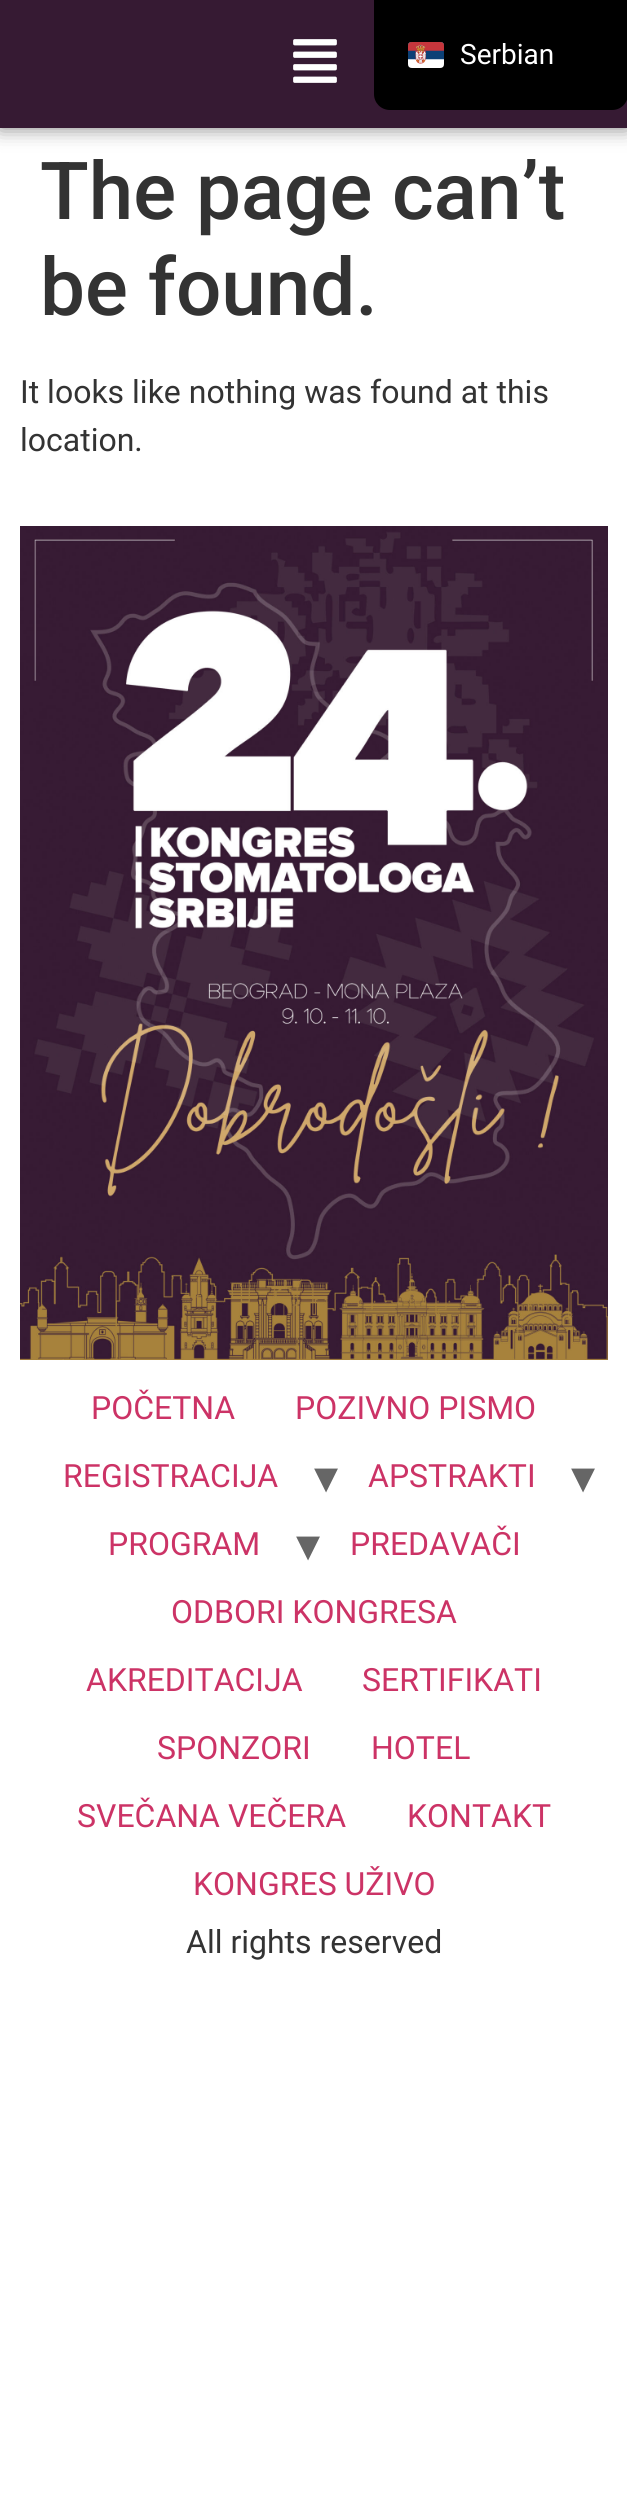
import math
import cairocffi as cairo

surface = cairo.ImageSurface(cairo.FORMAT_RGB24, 627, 2519)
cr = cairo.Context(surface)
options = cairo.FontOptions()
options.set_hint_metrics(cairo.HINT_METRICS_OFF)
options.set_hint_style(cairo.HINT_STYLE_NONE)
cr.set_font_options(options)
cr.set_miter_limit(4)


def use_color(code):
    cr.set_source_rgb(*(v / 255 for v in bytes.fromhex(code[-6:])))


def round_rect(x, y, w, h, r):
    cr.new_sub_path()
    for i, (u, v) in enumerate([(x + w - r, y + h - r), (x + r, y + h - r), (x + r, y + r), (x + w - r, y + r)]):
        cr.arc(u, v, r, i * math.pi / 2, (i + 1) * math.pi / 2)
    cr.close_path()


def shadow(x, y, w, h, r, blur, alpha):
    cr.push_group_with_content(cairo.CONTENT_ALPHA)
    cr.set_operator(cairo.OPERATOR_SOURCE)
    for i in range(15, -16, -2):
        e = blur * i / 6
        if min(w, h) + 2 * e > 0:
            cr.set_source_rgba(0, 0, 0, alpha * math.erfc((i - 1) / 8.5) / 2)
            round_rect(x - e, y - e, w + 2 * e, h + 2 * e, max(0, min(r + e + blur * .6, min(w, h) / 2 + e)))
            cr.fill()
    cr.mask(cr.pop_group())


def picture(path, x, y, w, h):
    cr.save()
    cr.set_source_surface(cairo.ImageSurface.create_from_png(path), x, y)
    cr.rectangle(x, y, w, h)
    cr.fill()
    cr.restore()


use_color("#ffffff")
cr.paint()
use_color("#000000")
shadow(0, 0, 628, 128, 0, 10, 0.5)
use_color("#361a33")
cr.rectangle(0, 0, 627, 128)
cr.fill()
picture("img1.png", 293, 39, 44, 44)
use_color("#000000")
cr.new_path()
cr.move_to(374, 0)
cr.line_to(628, 0)
cr.line_to(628, 94)
cr.curve_to(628, 103, 621, 110, 612, 110)
cr.line_to(390, 110)
cr.curve_to(381, 110, 374, 103, 374, 94)
cr.close_path()
cr.fill()
picture("img2.png", 408, 42, 36, 26)
cr.select_font_face("Roboto")
cr.set_font_size(28)
use_color("#ffffff")
cr.move_to(460, 64)
cr.show_text("Serbian")
cr.select_font_face("Roboto Medium")
cr.set_font_size(80)
use_color("#333333")
cr.move_to(40, 219)
cr.show_text("The page can’t")
cr.move_to(40, 315)
cr.show_text("be found.")
cr.select_font_face("Roboto")
cr.set_font_size(32)
cr.move_to(20, 403)
cr.show_text("It looks like nothing was found at this")
cr.move_to(20, 451)
cr.show_text("location.")
picture("img3.png", 20, 526, 588, 834)
use_color("#cc3366")
cr.move_to(91, 1419)
cr.show_text("POČETNA")
cr.move_to(295, 1419)
cr.show_text("POZIVNO PISMO")
cr.move_to(63, 1487)
cr.show_text("REGISTRACIJA")
cr.select_font_face("DejaVu Sans")
cr.set_font_size(48)
use_color("#666666")
cr.move_to(314, 1493)
cr.show_text("▾")
cr.select_font_face("Roboto")
cr.set_font_size(32)
use_color("#cc3366")
cr.move_to(368, 1487)
cr.show_text("APSTRAKTI")
cr.select_font_face("DejaVu Sans")
cr.set_font_size(48)
use_color("#666666")
cr.move_to(571, 1493)
cr.show_text("▾")
cr.select_font_face("Roboto")
cr.set_font_size(32)
use_color("#cc3366")
cr.move_to(108, 1555)
cr.show_text("PROGRAM")
cr.select_font_face("DejaVu Sans")
cr.set_font_size(48)
use_color("#666666")
cr.move_to(296, 1561)
cr.show_text("▾")
cr.select_font_face("Roboto")
cr.set_font_size(32)
use_color("#cc3366")
cr.move_to(350, 1555)
cr.show_text("PREDAVAČI")
cr.move_to(171, 1623)
cr.show_text("ODBORI KONGRESA")
cr.move_to(86, 1691)
cr.show_text("AKREDITACIJA")
cr.move_to(362, 1691)
cr.show_text("SERTIFIKATI")
cr.move_to(157, 1759)
cr.show_text("SPONZORI")
cr.move_to(371, 1759)
cr.show_text("HOTEL")
cr.move_to(77, 1827)
cr.show_text("SVEČANA VEČERA")
cr.move_to(407, 1827)
cr.show_text("KONTAKT")
cr.move_to(193, 1895)
cr.show_text("KONGRES UŽIVO")
use_color("#333333")
cr.move_to(186, 1953)
cr.show_text("All rights reserved")
surface.write_to_png("result.png")
